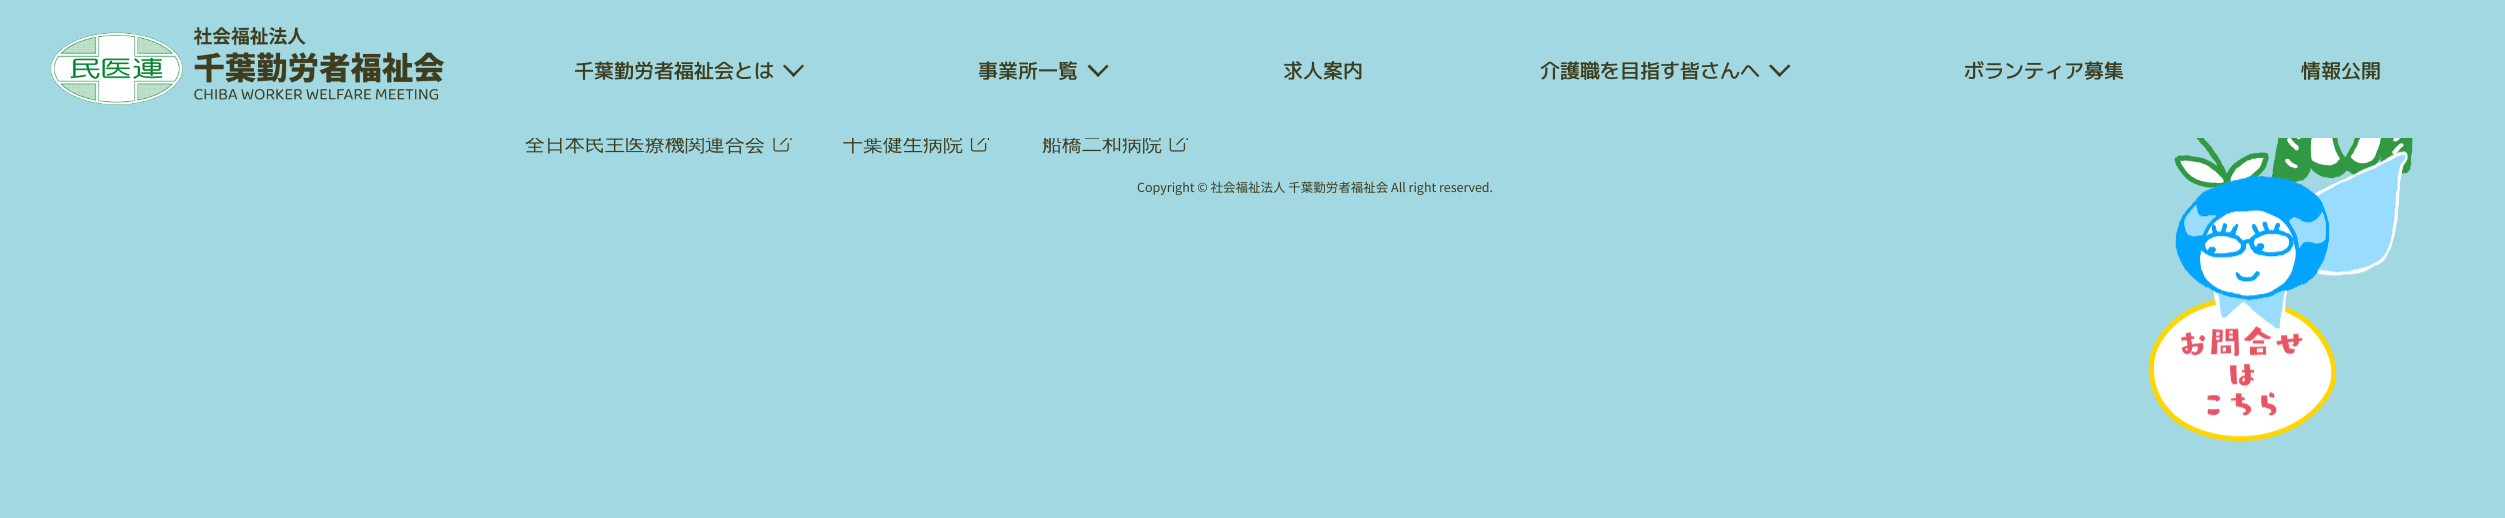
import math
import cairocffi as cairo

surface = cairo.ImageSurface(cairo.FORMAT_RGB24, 2505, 518)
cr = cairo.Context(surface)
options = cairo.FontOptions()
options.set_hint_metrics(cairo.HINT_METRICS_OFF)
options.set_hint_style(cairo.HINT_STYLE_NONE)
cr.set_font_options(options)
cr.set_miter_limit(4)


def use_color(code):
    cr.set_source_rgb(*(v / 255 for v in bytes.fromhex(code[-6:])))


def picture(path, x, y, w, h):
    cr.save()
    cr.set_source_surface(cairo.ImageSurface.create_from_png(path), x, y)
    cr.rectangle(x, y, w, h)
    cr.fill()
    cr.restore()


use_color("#a1d8e2")
cr.paint()
cr.select_font_face("WenQuanYi Zen Hei Medium")
cr.set_font_size(20)
use_color("#3e3e1f")
cr.move_to(525, 151)
cr.show_text("全日本民主医療機関連合会")
cr.move_to(843, 151)
cr.show_text("千葉健生病院")
cr.move_to(1042, 151)
cr.show_text("船橋二和病院")
use_color("#a1d8e2")
cr.rectangle(532, 134, 629, 4)
cr.fill()
picture("img1.png", 50, 27, 395, 79)
cr.select_font_face("M PLUS 2 Medium")
use_color("#3e3e1f")
cr.move_to(574, 78)
cr.show_text("千葉勤労者福祉会とは")
cr.new_path()
cr.move_to(802.5, 64.5)
cr.line_to(804, 66)
cr.line_to(793.5, 77)
cr.line_to(792, 75)
cr.close_path()
cr.fill()
cr.new_path()
cr.move_to(784.5, 64.5)
cr.line_to(795.5, 75)
cr.line_to(793.5, 77)
cr.line_to(783, 66)
cr.close_path()
cr.fill()
cr.move_to(978, 78)
cr.show_text("事業所一覧")
cr.new_path()
cr.move_to(1107, 64.5)
cr.line_to(1108.5, 66.5)
cr.line_to(1098, 77)
cr.line_to(1096.5, 75)
cr.close_path()
cr.fill()
cr.new_path()
cr.move_to(1089.5, 64.5)
cr.line_to(1100, 75)
cr.line_to(1098, 77)
cr.line_to(1087.5, 66.5)
cr.close_path()
cr.fill()
cr.move_to(1283, 78)
cr.show_text("求人案内")
cr.move_to(1540, 78)
cr.show_text("介護職を目指す皆さんへ")
cr.new_path()
cr.move_to(1788.5, 64.5)
cr.line_to(1790.5, 66)
cr.line_to(1779.5, 77)
cr.line_to(1778, 75)
cr.close_path()
cr.fill()
cr.new_path()
cr.move_to(1771, 64.5)
cr.line_to(1781.5, 75)
cr.line_to(1779.5, 77)
cr.line_to(1769, 66)
cr.close_path()
cr.fill()
cr.move_to(1964, 78)
cr.show_text("ボランティア募集")
cr.move_to(2301, 78)
cr.show_text("情報公開")
picture("img2.png", 773, 138, 19, 14)
picture("img3.png", 970, 138, 20, 14)
picture("img4.png", 1169, 138, 19, 14)
cr.select_font_face("Noto Sans JP")
cr.set_font_size(12.5)
cr.move_to(1137, 192)
cr.show_text("Copyright © 社会福祉法人 千葉勤労者福祉会 All right reserved.")
picture("img5.png", 2174, 138, 239, 50)
picture("img6.png", 2148, 151, 260, 291)
surface.write_to_png("result.png")
